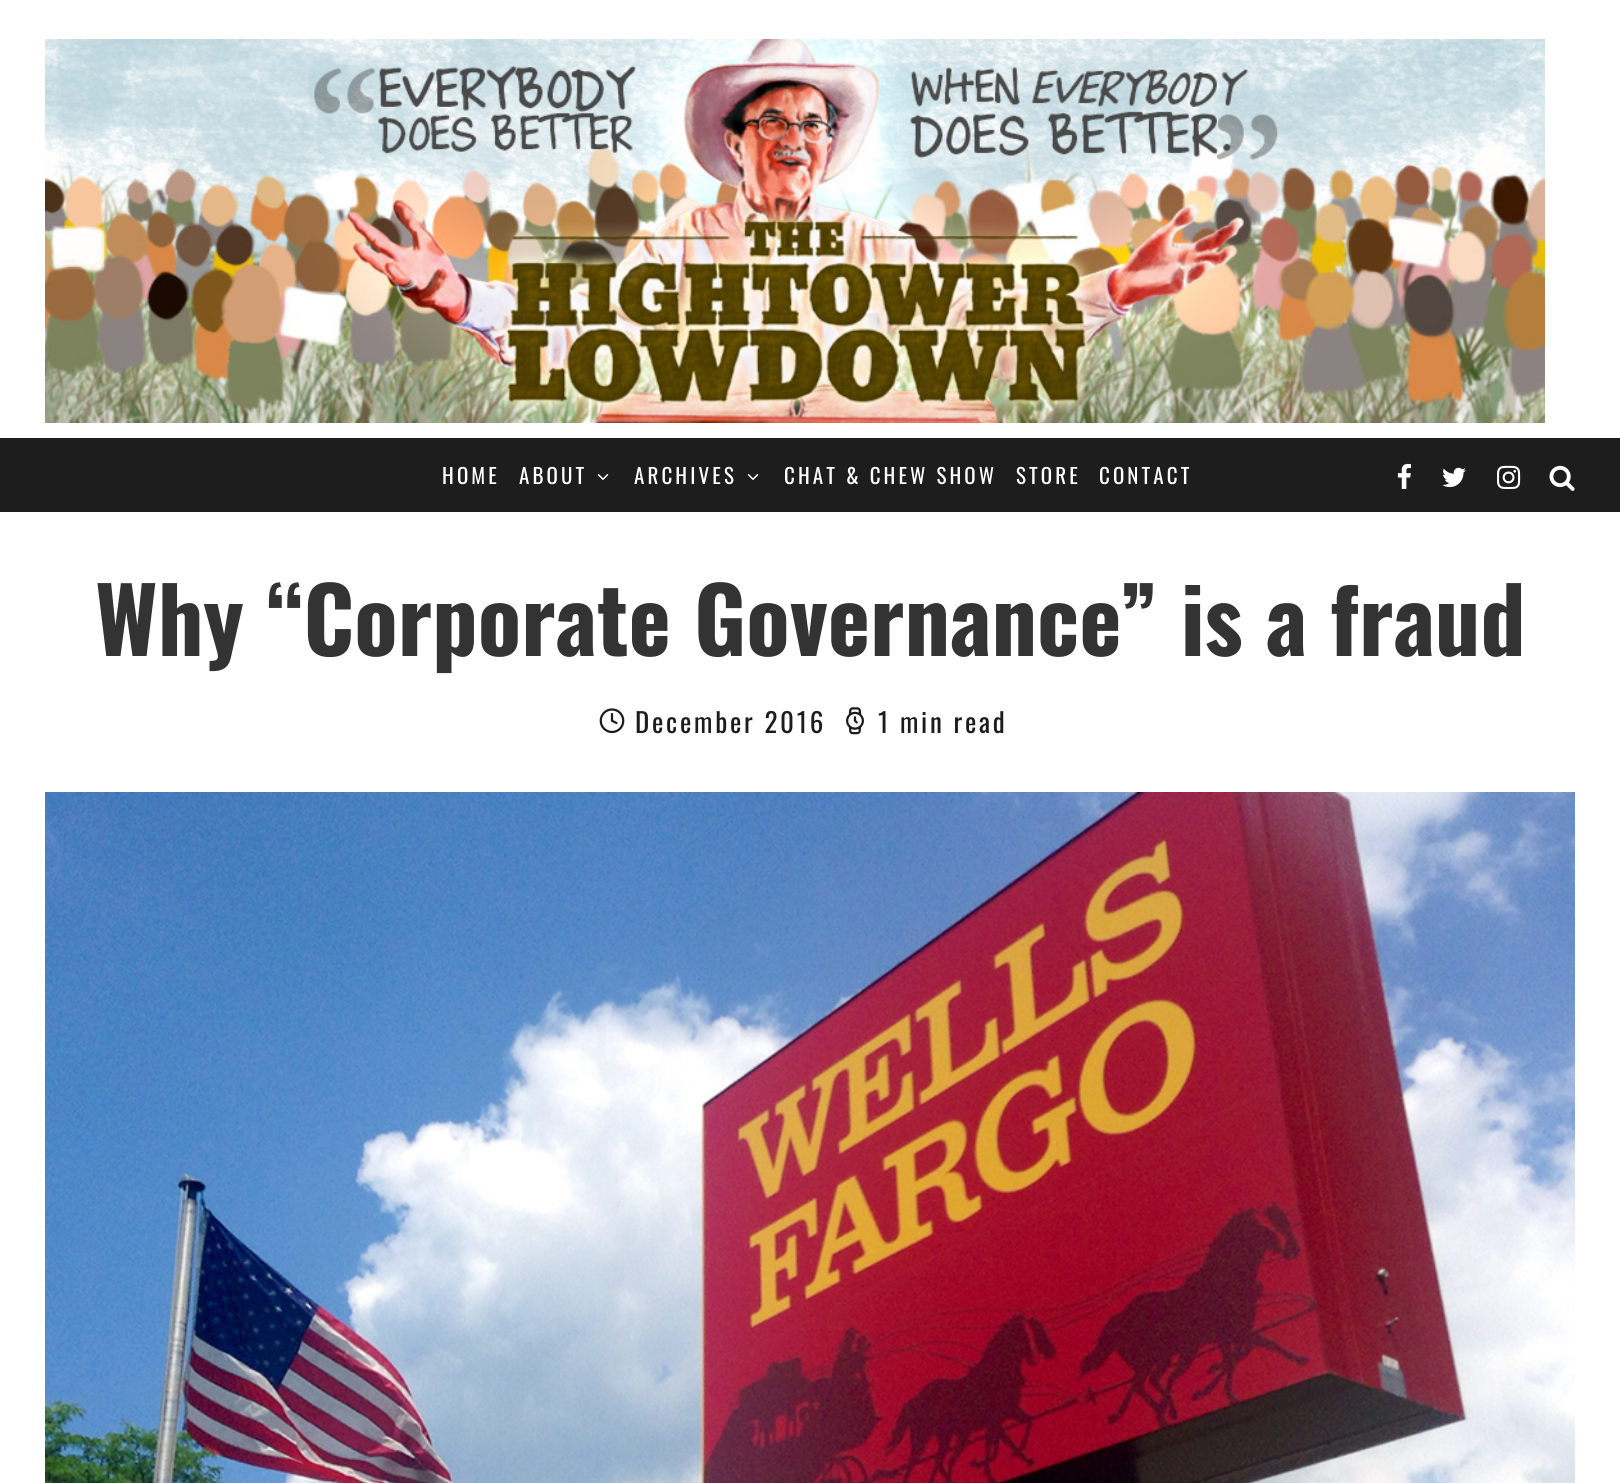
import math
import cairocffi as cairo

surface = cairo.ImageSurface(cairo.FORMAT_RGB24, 1620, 1483)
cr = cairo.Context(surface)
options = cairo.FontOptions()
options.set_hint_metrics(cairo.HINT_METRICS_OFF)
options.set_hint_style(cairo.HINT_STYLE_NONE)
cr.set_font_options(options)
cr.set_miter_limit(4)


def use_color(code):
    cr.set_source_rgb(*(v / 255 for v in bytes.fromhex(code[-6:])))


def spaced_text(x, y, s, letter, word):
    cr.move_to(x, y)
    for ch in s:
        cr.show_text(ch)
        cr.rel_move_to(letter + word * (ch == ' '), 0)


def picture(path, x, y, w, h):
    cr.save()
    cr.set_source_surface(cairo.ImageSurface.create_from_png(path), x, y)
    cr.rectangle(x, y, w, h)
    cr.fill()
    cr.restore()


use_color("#ffffff")
cr.paint()
picture("img1.png", 45, 39, 1500, 384)
use_color("#1d1d1d")
cr.rectangle(0, 438, 1620, 74)
cr.fill()
cr.select_font_face("Oswald")
cr.set_font_size(21)
use_color("#ffffff")
spaced_text(442, 484, "HOME", 3.1, 0)
spaced_text(519, 484, "ABOUT", 3.1, 0)
picture("img2.png", 597, 474, 12, 6)
spaced_text(634, 484, "ARCHIVES", 3.1, 0)
picture("img2.png", 747, 474, 12, 6)
spaced_text(784, 484, "CHAT & CHEW SHOW", 3.1, 0)
spaced_text(1016, 484, "STORE", 3.1, 0)
spaced_text(1099, 484, "CONTACT", 3.1, 0)
picture("img3.png", 1397, 463, 14, 26)
picture("img4.png", 1442, 467, 24, 21)
picture("img5.png", 1497, 465, 24, 24)
picture("img6.png", 1549, 465, 26, 26)
cr.select_font_face("Oswald", cairo.FONT_SLANT_NORMAL, cairo.FONT_WEIGHT_BOLD)
cr.set_font_size(90)
use_color("#333333")
cr.move_to(95, 656)
cr.show_text("Why “Corporate Governance” is a fraud")
picture("img7.png", 599, 708, 26, 26)
cr.select_font_face("Oswald")
cr.set_font_size(27)
use_color("#1c1c1c")
spaced_text(635, 733, "December 2016", 2.75, 0)
picture("img8.png", 846, 707, 18, 28)
spaced_text(878, 733, "1 min read", 2.75, 0)
picture("img9.png", 45, 792, 1530, 691)
surface.write_to_png("result.png")
